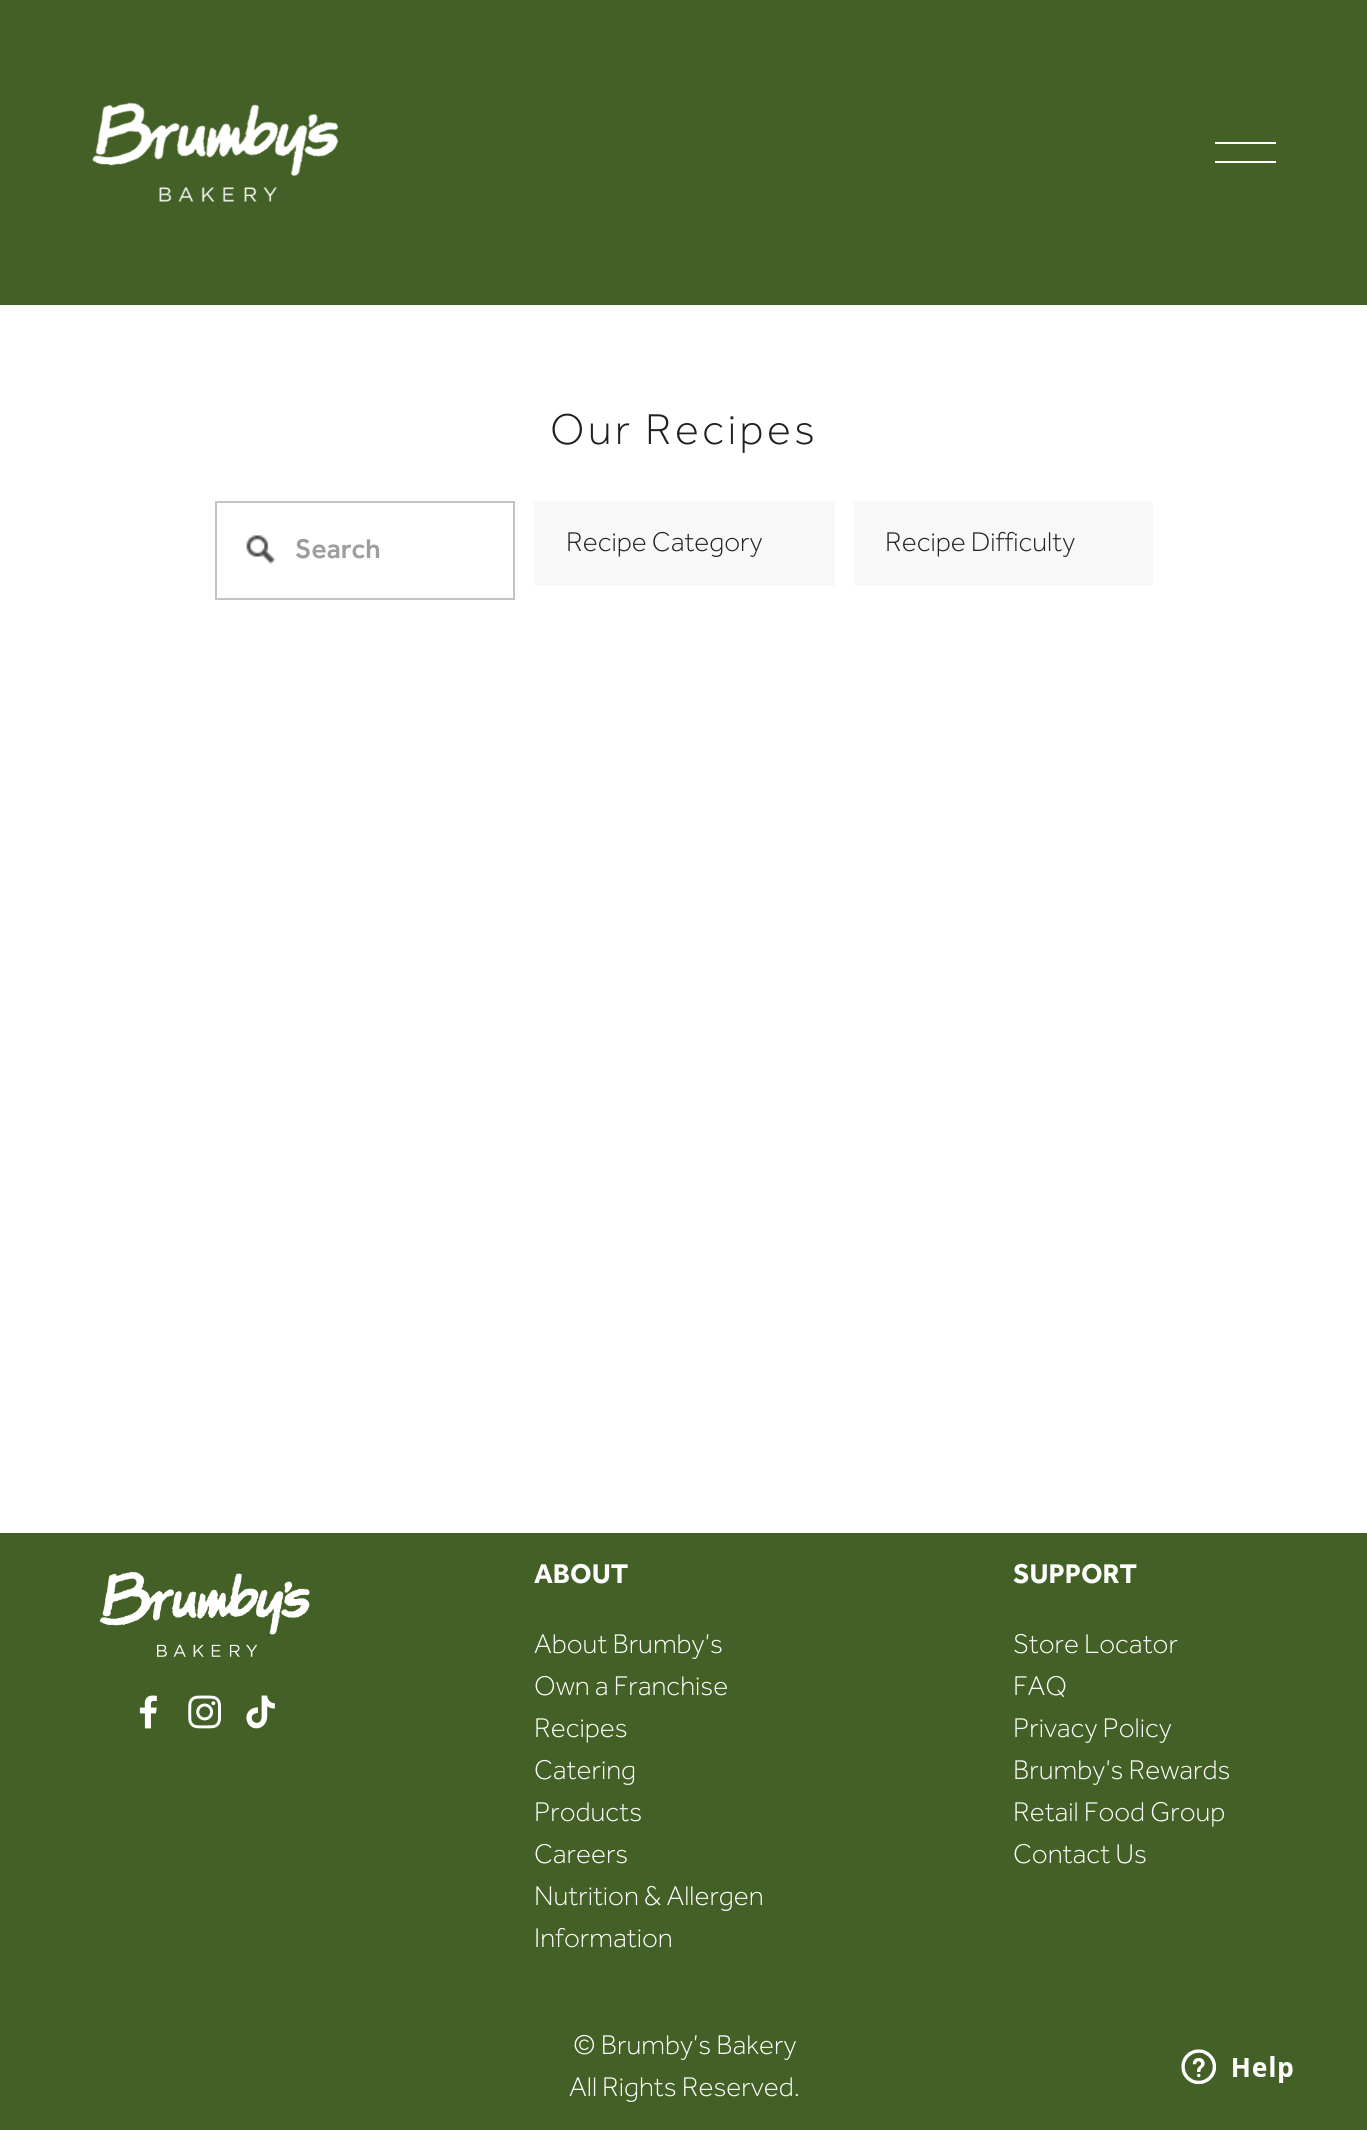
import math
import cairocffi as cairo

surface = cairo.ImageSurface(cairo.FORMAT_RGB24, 1367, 2130)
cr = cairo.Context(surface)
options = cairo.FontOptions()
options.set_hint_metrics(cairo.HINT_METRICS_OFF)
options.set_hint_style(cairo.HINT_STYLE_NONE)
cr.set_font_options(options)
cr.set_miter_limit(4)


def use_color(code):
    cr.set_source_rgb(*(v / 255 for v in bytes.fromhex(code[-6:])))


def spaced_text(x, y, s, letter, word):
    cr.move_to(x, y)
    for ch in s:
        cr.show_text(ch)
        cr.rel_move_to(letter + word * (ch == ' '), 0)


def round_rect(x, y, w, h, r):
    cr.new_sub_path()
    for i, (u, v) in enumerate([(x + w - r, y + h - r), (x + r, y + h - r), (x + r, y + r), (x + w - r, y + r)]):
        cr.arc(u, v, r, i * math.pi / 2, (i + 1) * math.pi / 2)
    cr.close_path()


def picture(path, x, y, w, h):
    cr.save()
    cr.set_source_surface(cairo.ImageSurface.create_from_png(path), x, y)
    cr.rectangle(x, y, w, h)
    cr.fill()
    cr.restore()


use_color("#ffffff")
cr.paint()
use_color("#436026")
cr.rectangle(0, 0, 1367, 305)
cr.fill()
picture("img1.png", 92, 102, 247, 100)
use_color("#ffffff")
cr.rectangle(1215, 142, 61, 2)
cr.fill()
cr.rectangle(1215, 161, 61, 2)
cr.fill()
cr.select_font_face("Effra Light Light")
cr.set_font_size(44.5)
use_color("#231f20")
spaced_text(550, 444, "Our Recipes", 3.5, 0)
picture("img2.png", 246, 535, 30, 29)
cr.rectangle(216, 502, 298, 97)
use_color("#c4c4c4")
cr.stroke()
cr.select_font_face("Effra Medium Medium")
cr.set_font_size(28)
use_color("#9e9e9e")
cr.move_to(295, 558)
cr.show_text("Search")
use_color("#f8f8f8")
round_rect(534, 501, 301, 85, 2)
cr.fill()
cr.select_font_face("Effra Light Light")
use_color("#231f20")
cr.move_to(566, 551)
cr.show_text("Recipe Category")
use_color("#f8f8f8")
round_rect(854, 501, 299, 85, 2)
cr.fill()
use_color("#231f20")
cr.move_to(885, 551)
cr.show_text("Recipe Difficulty")
use_color("#436026")
cr.rectangle(0, 1533, 1367, 597)
cr.fill()
picture("img3.png", 99, 1571, 211, 86)
cr.select_font_face("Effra", cairo.FONT_SLANT_NORMAL, cairo.FONT_WEIGHT_BOLD)
use_color("#ffffff")
cr.move_to(534, 1583)
cr.show_text("ABOUT")
cr.select_font_face("Effra Light Light")
cr.move_to(534, 1653)
cr.show_text("About Brumby’s")
cr.move_to(534, 1695)
cr.show_text("Own a Franchise")
cr.move_to(534, 1737)
cr.show_text("Recipes")
cr.move_to(534, 1779)
cr.show_text("Catering")
cr.move_to(534, 1821)
cr.show_text("Products")
cr.move_to(534, 1863)
cr.show_text("Careers")
cr.move_to(534, 1905)
cr.show_text("Nutrition & Allergen")
cr.move_to(534, 1947)
cr.show_text("Information")
cr.select_font_face("Effra", cairo.FONT_SLANT_NORMAL, cairo.FONT_WEIGHT_BOLD)
cr.move_to(1013, 1583)
cr.show_text("SUPPORT")
cr.select_font_face("Effra Light Light")
cr.move_to(1013, 1653)
cr.show_text("Store Locator")
cr.move_to(1013, 1695)
cr.show_text("FAQ")
cr.move_to(1013, 1737)
cr.show_text("Privacy Policy")
cr.move_to(1013, 1779)
cr.show_text("Brumby’s Rewards")
cr.move_to(1013, 1821)
cr.show_text("Retail Food Group")
cr.move_to(1013, 1863)
cr.show_text("Contact Us")
picture("img4.png", 139, 1695, 18, 34)
picture("img5.png", 188, 1695, 34, 34)
picture("img6.png", 246, 1695, 29, 34)
cr.move_to(573, 2054)
cr.show_text("© Brumby’s Bakery")
cr.move_to(569, 2096)
cr.show_text("All Rights Reserved.")
picture("img7.png", 1181, 2049, 112, 36)
surface.write_to_png("result.png")
